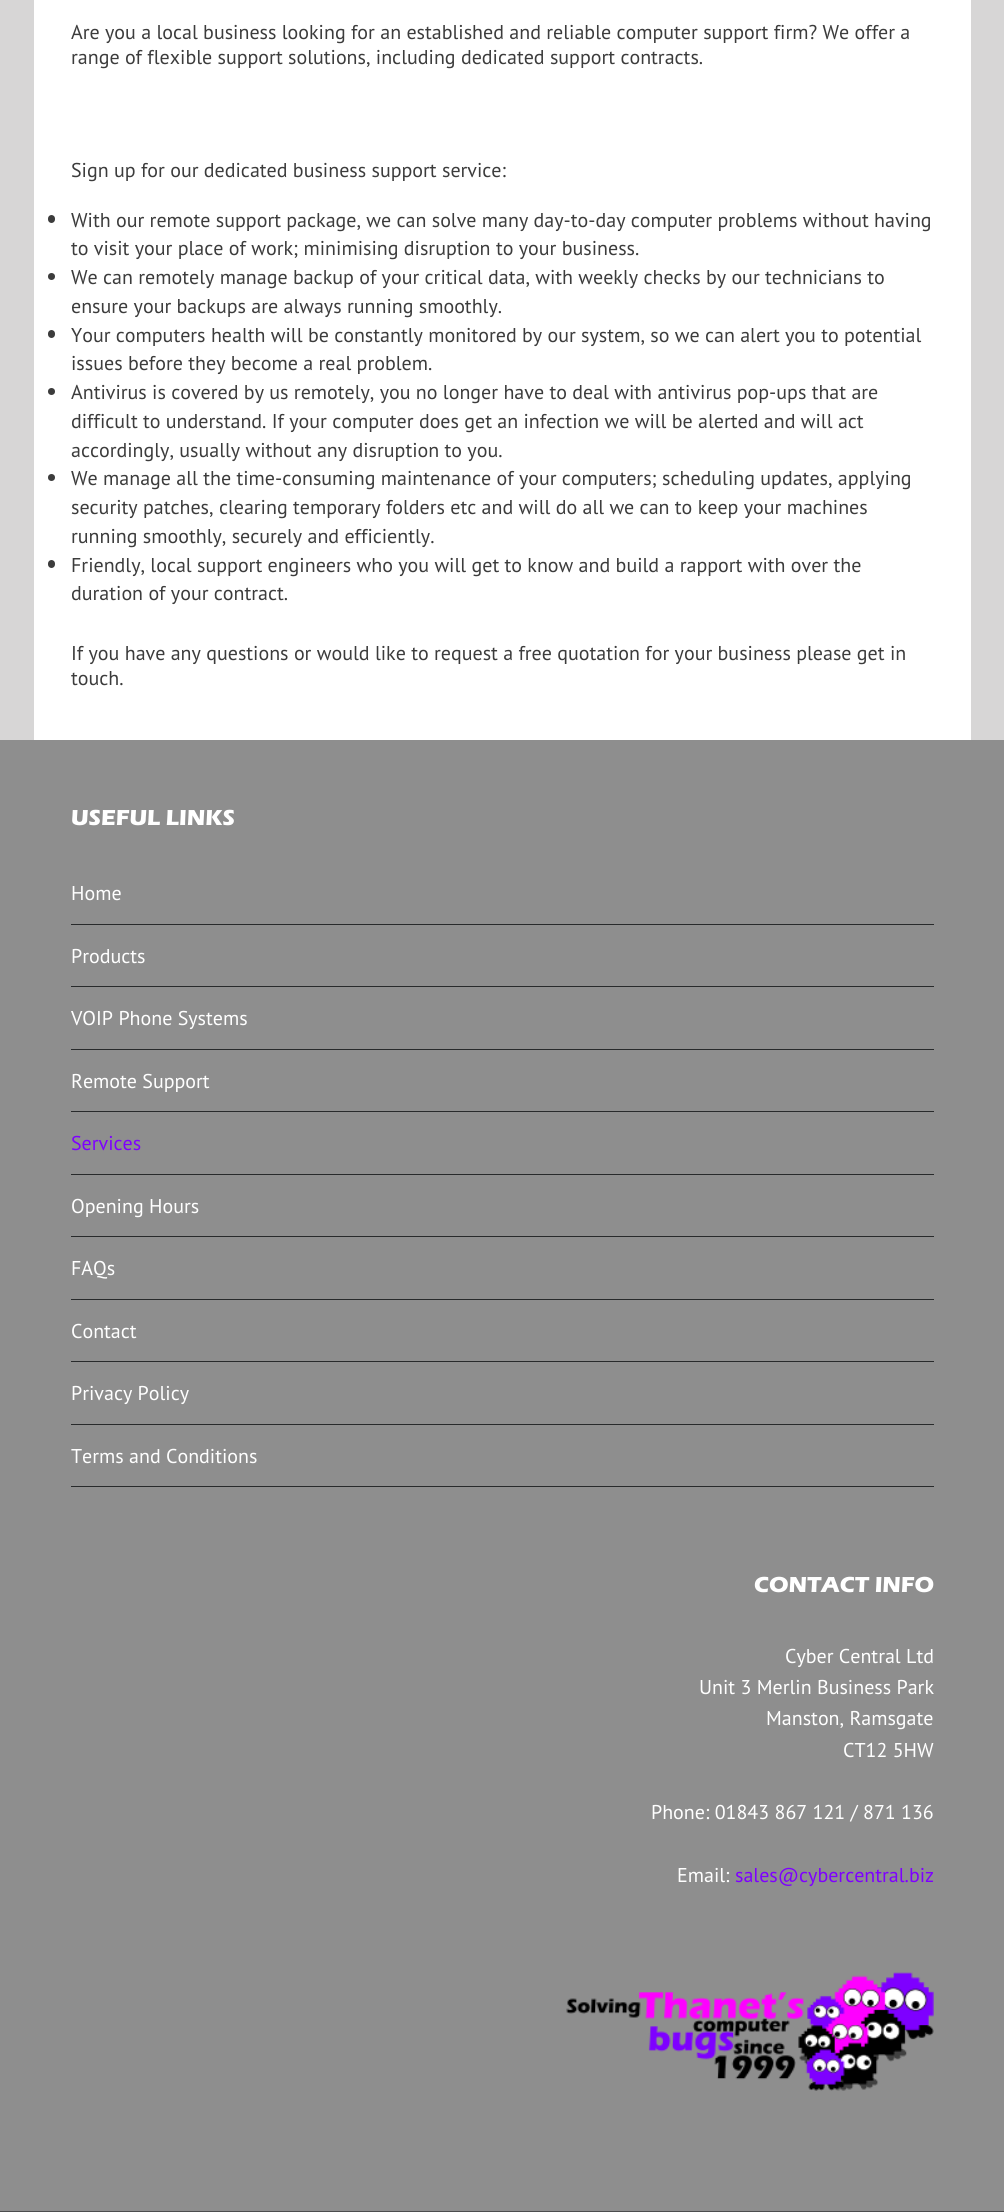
import math
import cairocffi as cairo

surface = cairo.ImageSurface(cairo.FORMAT_RGB24, 1004, 2212)
cr = cairo.Context(surface)
options = cairo.FontOptions()
options.set_hint_metrics(cairo.HINT_METRICS_OFF)
options.set_hint_style(cairo.HINT_STYLE_NONE)
cr.set_font_options(options)
cr.set_miter_limit(4)


def use_color(code):
    cr.set_source_rgb(*(v / 255 for v in bytes.fromhex(code[-6:])))


def round_rect(x, y, w, h, r):
    cr.new_sub_path()
    for i, (u, v) in enumerate([(x + w - r, y + h - r), (x + r, y + h - r), (x + r, y + r), (x + w - r, y + r)]):
        cr.arc(u, v, r, i * math.pi / 2, (i + 1) * math.pi / 2)
    cr.close_path()


def picture(path, x, y, w, h):
    cr.save()
    cr.set_source_surface(cairo.ImageSurface.create_from_png(path), x, y)
    cr.rectangle(x, y, w, h)
    cr.fill()
    cr.restore()


use_color("#d7d6d6")
cr.paint()
use_color("#ffffff")
cr.rectangle(34, 0, 937, 740)
cr.fill()
cr.select_font_face("PT Sans")
cr.set_font_size(20)
use_color("#3c3c3c")
cr.move_to(71, 39)
cr.show_text("Are you a local business looking for an established and reliable computer support firm? We offer a")
cr.move_to(71, 64)
cr.show_text("range of flexible support solutions, including dedicated support contracts.")
cr.move_to(71, 177)
cr.show_text("Sign up for our dedicated business support service:")
round_rect(48, 215, 7, 8, 3.5)
cr.fill()
cr.move_to(71, 227)
cr.show_text("With our remote support package, we can solve many day-to-day computer problems without having")
cr.move_to(71, 255)
cr.show_text("to visit your place of work; minimising disruption to your business.")
cr.new_path()
cr.arc(51.5, 276.5, 3.5, 0, 2 * math.pi)
cr.fill()
cr.move_to(71, 284)
cr.show_text("We can remotely manage backup of your critical data, with weekly checks by our technicians to")
cr.move_to(71, 313)
cr.show_text("ensure your backups are always running smoothly.")
round_rect(48, 330, 7, 8, 3.5)
cr.fill()
cr.move_to(71, 342)
cr.show_text("Your computers health will be constantly monitored by our system, so we can alert you to potential")
cr.move_to(71, 370)
cr.show_text("issues before they become a real problem.")
cr.new_path()
cr.arc(51.5, 391.5, 3.5, 0, 2 * math.pi)
cr.fill()
cr.move_to(71, 399)
cr.show_text("Antivirus is covered by us remotely, you no longer have to deal with antivirus pop-ups that are")
cr.move_to(71, 428)
cr.show_text("difficult to understand. If your computer does get an infection we will be alerted and will act")
cr.move_to(71, 457)
cr.show_text("accordingly, usually without any disruption to you.")
cr.new_path()
cr.arc(51.5, 477.5, 3.5, 0, 2 * math.pi)
cr.fill()
cr.move_to(71, 485)
cr.show_text("We manage all the time-consuming maintenance of your computers; scheduling updates, applying")
cr.move_to(71, 514)
cr.show_text("security patches, clearing temporary folders etc and will do all we can to keep your machines")
cr.move_to(71, 543)
cr.show_text("running smoothly, securely and efficiently.")
round_rect(48, 560, 7, 8, 3.5)
cr.fill()
cr.move_to(71, 572)
cr.show_text("Friendly, local support engineers who you will get to know and build a rapport with over the")
cr.move_to(71, 600)
cr.show_text("duration of your contract.")
cr.move_to(71, 660)
cr.show_text("If you have any questions or would like to request a free quotation for your business please get in")
cr.move_to(71, 685)
cr.show_text("touch.")
use_color("#8e8e8e")
cr.rectangle(0, 740, 1004, 1471)
cr.fill()
cr.select_font_face("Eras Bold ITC", cairo.FONT_SLANT_NORMAL, cairo.FONT_WEIGHT_BOLD)
cr.set_font_size(22.5)
use_color("#ffffff")
cr.move_to(71, 825)
cr.show_text("USEFUL LINKS")
use_color("#282a2b")
cr.rectangle(71, 924, 863, 1)
cr.fill()
cr.select_font_face("PT Sans")
cr.set_font_size(20)
use_color("#ffffff")
cr.move_to(71, 900)
cr.show_text("Home")
use_color("#282a2b")
cr.rectangle(71, 986, 863, 1)
cr.fill()
use_color("#ffffff")
cr.move_to(71, 963)
cr.show_text("Products")
use_color("#282a2b")
cr.rectangle(71, 1049, 863, 1)
cr.fill()
use_color("#ffffff")
cr.move_to(71, 1025)
cr.show_text("VOIP Phone Systems")
use_color("#282a2b")
cr.rectangle(71, 1111, 863, 1)
cr.fill()
use_color("#ffffff")
cr.move_to(71, 1088)
cr.show_text("Remote Support")
use_color("#282a2b")
cr.rectangle(71, 1174, 863, 1)
cr.fill()
use_color("#7e00ff")
cr.move_to(71, 1150)
cr.show_text("Services")
use_color("#282a2b")
cr.rectangle(71, 1236, 863, 1)
cr.fill()
use_color("#ffffff")
cr.move_to(71, 1213)
cr.show_text("Opening Hours")
use_color("#282a2b")
cr.rectangle(71, 1299, 863, 1)
cr.fill()
use_color("#ffffff")
cr.move_to(71, 1275)
cr.show_text("FAQs")
use_color("#282a2b")
cr.rectangle(71, 1361, 863, 1)
cr.fill()
use_color("#ffffff")
cr.move_to(71, 1338)
cr.show_text("Contact")
use_color("#282a2b")
cr.rectangle(71, 1424, 863, 1)
cr.fill()
use_color("#ffffff")
cr.move_to(71, 1400)
cr.show_text("Privacy Policy")
use_color("#282a2b")
cr.rectangle(71, 1486, 863, 1)
cr.fill()
use_color("#ffffff")
cr.move_to(71, 1463)
cr.show_text("Terms and Conditions")
cr.select_font_face("Eras Bold ITC", cairo.FONT_SLANT_NORMAL, cairo.FONT_WEIGHT_BOLD)
cr.set_font_size(22.5)
cr.move_to(754, 1592)
cr.show_text("CONTACT INFO")
cr.select_font_face("PT Sans")
cr.set_font_size(20)
cr.move_to(785, 1663)
cr.show_text("Cyber Central Ltd")
cr.move_to(699, 1694)
cr.show_text("Unit 3 Merlin Business Park")
cr.move_to(766, 1725)
cr.show_text("Manston, Ramsgate")
cr.move_to(843, 1757)
cr.show_text("CT12 5HW")
cr.move_to(651, 1819)
cr.show_text("Phone: 01843 867 121 / 871 136")
cr.move_to(677, 1882)
cr.show_text("Email:")
use_color("#7e00ff")
cr.move_to(735, 1882)
cr.show_text("sales@cybercentral.biz")
picture("img1.png", 566, 1972, 368, 119)
use_color("#4b4c4d")
cr.rectangle(0, 2211, 1004, 1)
cr.fill()
surface.write_to_png("result.png")
